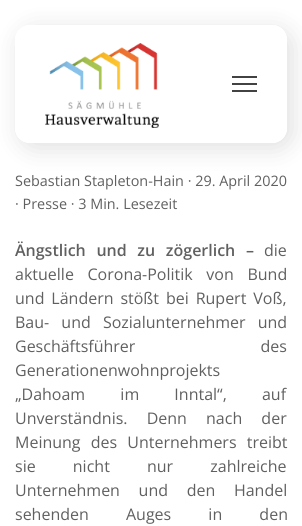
import math
import cairocffi as cairo

surface = cairo.ImageSurface(cairo.FORMAT_RGB24, 302, 526)
cr = cairo.Context(surface)
options = cairo.FontOptions()
options.set_hint_metrics(cairo.HINT_METRICS_OFF)
options.set_hint_style(cairo.HINT_STYLE_NONE)
cr.set_font_options(options)
cr.set_miter_limit(4)


def use_color(code):
    cr.set_source_rgb(*(v / 255 for v in bytes.fromhex(code[-6:])))


def spaced_text(x, y, s, letter, word):
    cr.move_to(x, y)
    for ch in s:
        cr.show_text(ch)
        cr.rel_move_to(letter + word * (ch == ' '), 0)


def round_rect(x, y, w, h, r):
    cr.new_sub_path()
    for i, (u, v) in enumerate([(x + w - r, y + h - r), (x + r, y + h - r), (x + r, y + r), (x + w - r, y + r)]):
        cr.arc(u, v, r, i * math.pi / 2, (i + 1) * math.pi / 2)
    cr.close_path()


def shadow(x, y, w, h, r, blur, alpha):
    cr.push_group_with_content(cairo.CONTENT_ALPHA)
    cr.set_operator(cairo.OPERATOR_SOURCE)
    for i in range(15, -16, -2):
        e = blur * i / 6
        if min(w, h) + 2 * e > 0:
            cr.set_source_rgba(0, 0, 0, alpha * math.erfc((i - 1) / 8.5) / 2)
            round_rect(x - e, y - e, w + 2 * e, h + 2 * e, max(0, min(r + e + blur * .6, min(w, h) / 2 + e)))
            cr.fill()
    cr.mask(cr.pop_group())


def picture(path, x, y, w, h):
    cr.save()
    cr.set_source_surface(cairo.ImageSurface.create_from_png(path), x, y)
    cr.rectangle(x, y, w, h)
    cr.fill()
    cr.restore()


use_color("#ffffff")
cr.paint()
cr.save()
cr.set_fill_rule(cairo.FILL_RULE_EVEN_ODD)
cr.new_path()
cr.move_to(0, 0)
cr.line_to(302, 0)
cr.line_to(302, 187)
cr.line_to(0, 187)
cr.close_path()
cr.move_to(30, 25)
cr.line_to(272, 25)
cr.curve_to(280.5, 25, 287, 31.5, 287, 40)
cr.line_to(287, 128)
cr.curve_to(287, 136.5, 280.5, 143, 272, 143)
cr.line_to(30, 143)
cr.curve_to(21.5, 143, 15, 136.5, 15, 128)
cr.line_to(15, 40)
cr.curve_to(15, 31.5, 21.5, 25, 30, 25)
cr.close_path()
cr.clip()
use_color("#000000")
shadow(20, 30, 272, 118, 15, 12.5, 0.13)
cr.restore()
cr.set_source_rgba(1, 1, 1, 0.95)
round_rect(15, 25, 272, 118, 15)
cr.fill()
picture("img1.png", 45, 43, 114, 85)
use_color("#424242")
cr.rectangle(232, 76, 25, 2)
cr.fill()
cr.rectangle(232, 83, 25, 2)
cr.fill()
cr.rectangle(232, 90, 25, 2)
cr.fill()
cr.select_font_face("Open Sans")
cr.set_font_size(14.4)
use_color("#606060")
cr.move_to(15, 186)
cr.show_text("Sebastian Stapleton-Hain · 29. April 2020")
cr.move_to(15, 209)
cr.show_text("· Presse · 3 Min. Lesezeit")
cr.select_font_face("Open Sans SemiBold")
cr.set_font_size(16)
spaced_text(15, 256, "Ängstlich und zu zögerlich –", 0, 6.5)
cr.select_font_face("Open Sans")
cr.move_to(264, 256)
cr.show_text("die")
spaced_text(15, 280, "aktuelle Corona-Politik von Bund", 0, 9.5)
spaced_text(15, 304, "und Ländern stößt bei Rupert Voß,", 0, 2.75)
spaced_text(15, 328, "Bau- und Sozialunternehmer und", 0, 8)
spaced_text(15, 352, "Geschäftsführer des", 0, 121)
cr.move_to(15, 376)
cr.show_text("Generationenwohnprojekts")
spaced_text(15, 400, "„Dahoam im Inntal“, auf", 0, 31)
spaced_text(15, 424, "Unverständnis. Denn nach der", 0, 15)
spaced_text(15, 448, "Meinung des Unternehmers treibt", 0, 6)
spaced_text(15, 472, "sie nicht nur zahlreiche", 0, 33)
spaced_text(15, 496, "Unternehmen und den Handel", 0, 14.5)
spaced_text(15, 520, "sehenden Auges in den", 0, 33)
surface.write_to_png("result.png")
